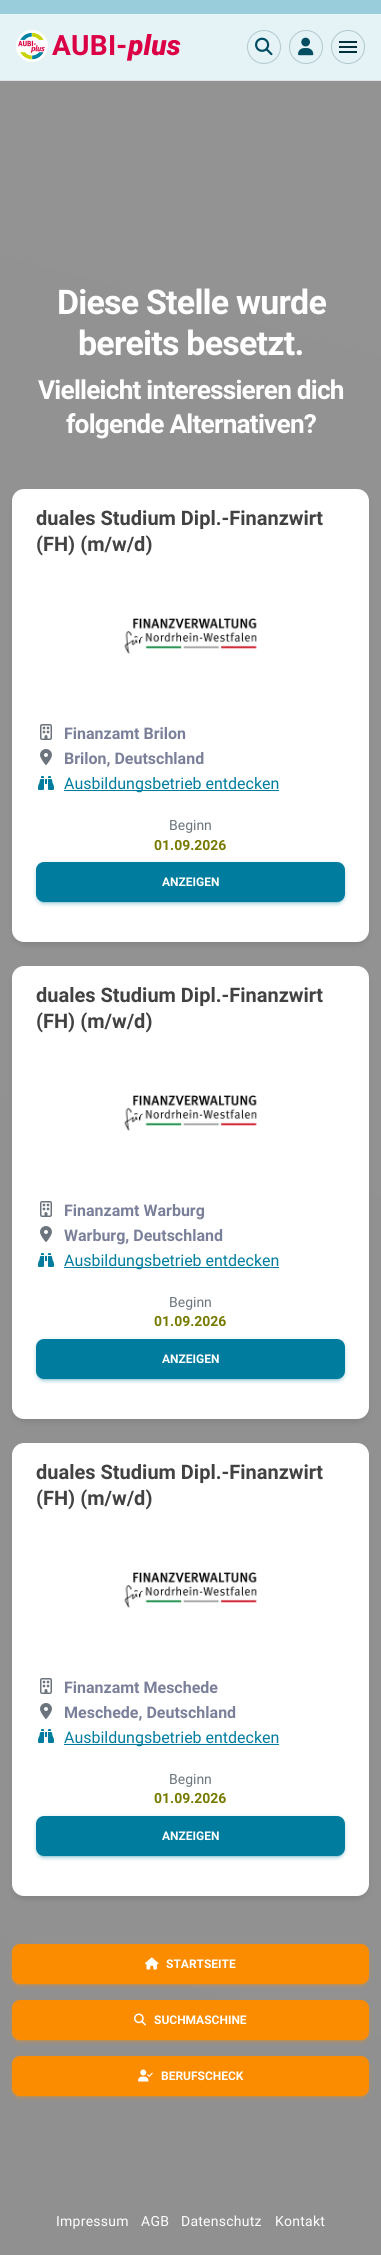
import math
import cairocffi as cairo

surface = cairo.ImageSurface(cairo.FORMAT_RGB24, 381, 2255)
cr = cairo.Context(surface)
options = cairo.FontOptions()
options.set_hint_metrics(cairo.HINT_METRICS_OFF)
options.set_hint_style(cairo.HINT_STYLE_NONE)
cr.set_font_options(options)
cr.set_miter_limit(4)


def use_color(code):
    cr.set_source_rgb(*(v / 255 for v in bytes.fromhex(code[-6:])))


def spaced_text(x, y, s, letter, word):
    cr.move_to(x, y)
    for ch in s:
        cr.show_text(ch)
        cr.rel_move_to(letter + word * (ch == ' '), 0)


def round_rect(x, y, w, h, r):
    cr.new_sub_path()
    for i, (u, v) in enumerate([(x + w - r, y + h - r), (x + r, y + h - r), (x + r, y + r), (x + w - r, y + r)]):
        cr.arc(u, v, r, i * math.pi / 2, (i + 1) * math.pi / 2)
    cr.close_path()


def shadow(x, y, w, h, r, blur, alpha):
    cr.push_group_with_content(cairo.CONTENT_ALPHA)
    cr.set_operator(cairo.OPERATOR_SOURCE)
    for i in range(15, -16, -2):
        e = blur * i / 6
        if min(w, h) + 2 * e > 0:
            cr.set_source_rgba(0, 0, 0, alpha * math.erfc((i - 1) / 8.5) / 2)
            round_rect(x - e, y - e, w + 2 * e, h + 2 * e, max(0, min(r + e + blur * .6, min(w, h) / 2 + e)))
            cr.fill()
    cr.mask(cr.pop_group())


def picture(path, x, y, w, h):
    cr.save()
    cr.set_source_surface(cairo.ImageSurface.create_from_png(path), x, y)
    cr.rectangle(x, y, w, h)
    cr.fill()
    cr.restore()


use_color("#99cddb")
cr.paint()
use_color("#e5f2f6")
cr.rectangle(0, 14, 381, 66)
cr.fill()
use_color("#dee2e6")
cr.rectangle(0, 80, 381, 1)
cr.fill()
use_color("#ffffff")
cr.arc(32, 46, 16, 0, 2 * math.pi)
cr.fill()
picture("img1.png", 18, 32, 27, 28)
cr.select_font_face("Roboto", cairo.FONT_SLANT_NORMAL, cairo.FONT_WEIGHT_BOLD)
cr.set_font_size(28)
use_color("#db0045")
spaced_text(52, 55, "AUBI-", 0.25, 0)
cr.select_font_face("Roboto Black", cairo.FONT_SLANT_ITALIC)
spaced_text(128, 55, "plus", 0.25, 0)
cr.new_path()
cr.arc(264, 47, 16.5, 0, 2 * math.pi)
use_color("#b2c9d0")
cr.set_line_width(1)
cr.stroke()
picture("img2.png", 255, 37, 18, 19)
cr.arc(306, 47, 16.5, 0, 2 * math.pi)
cr.stroke()
picture("img3.png", 298, 37, 16, 19)
cr.arc(348, 47, 16.5, 0, 2 * math.pi)
cr.stroke()
use_color("#012f3b")
cr.rectangle(339, 41, 18, 2)
cr.fill()
cr.rectangle(339, 46, 18, 2)
cr.fill()
cr.rectangle(339, 51, 18, 2)
cr.fill()
gradient = cairo.LinearGradient(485, 66, -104, 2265)
gradient.add_color_stop_rgba(0, 0.576, 0.576, 0.576, 1)
gradient.add_color_stop_rgba(1, 0.565, 0.565, 0.565, 1)
cr.set_source(gradient)
cr.rectangle(0, 81, 381, 2174)
cr.fill()
cr.select_font_face("Roboto", cairo.FONT_SLANT_NORMAL, cairo.FONT_WEIGHT_BOLD)
cr.set_font_size(34)
use_color("#ffffff")
spaced_text(57, 314, "Diese Stelle wurde", -0.8, 0)
spaced_text(78, 355, "bereits besetzt.", -0.8, 0)
cr.set_font_size(26.25)
spaced_text(38, 399, "Vielleicht interessieren dich", -0.8, 0)
spaced_text(66, 433, "folgende Alternativen?", -0.8, 0)
use_color("#000000")
shadow(13, 494, 355, 451, 11, 3, 0.1)
use_color("#ffffff")
round_rect(12, 489, 357, 453, 12)
cr.fill()
cr.set_font_size(20)
use_color("#424242")
cr.move_to(36, 525)
cr.show_text("duales Studium Dipl.-Finanzwirt")
cr.move_to(36, 551)
cr.show_text("(FH) (m/w/d)")
picture("img4.png", 124, 618, 133, 36)
picture("img5.png", 40, 724, 12, 16)
cr.set_font_size(16)
use_color("#7b809a")
cr.move_to(64, 739)
cr.show_text("Finanzamt Brilon")
picture("img6.png", 40, 749, 12, 16)
cr.move_to(64, 764)
cr.show_text("Brilon, Deutschland")
picture("img7.png", 38, 776, 16, 14)
use_color("#007d9e")
cr.rectangle(64, 790, 215, 1)
cr.fill()
cr.select_font_face("Roboto")
cr.move_to(64, 789)
cr.show_text("Ausbildungsbetrieb entdecken")
cr.set_font_size(14)
use_color("#6c757d")
cr.move_to(169, 830)
cr.show_text("Beginn")
cr.select_font_face("Roboto", cairo.FONT_SLANT_NORMAL, cairo.FONT_WEIGHT_BOLD)
use_color("#777a00")
cr.move_to(154, 850)
cr.show_text("01.09.2026")
use_color("#007d9e")
shadow(36, 863, 309, 40, 8, 2.5, 0.15)
shadow(38, 867, 305, 36, 6, 0.5, 0.2)
shadow(36, 865, 309, 40, 8, 1.5, 0.15)
use_color("#007d9e")
round_rect(36, 862, 309, 40, 8)
cr.fill()
cr.set_font_size(12)
use_color("#ffffff")
cr.move_to(162, 886)
cr.show_text("ANZEIGEN")
use_color("#000000")
shadow(13, 971, 355, 451, 11, 3, 0.1)
use_color("#ffffff")
round_rect(12, 966, 357, 453, 12)
cr.fill()
cr.set_font_size(20)
use_color("#424242")
cr.move_to(36, 1002)
cr.show_text("duales Studium Dipl.-Finanzwirt")
cr.move_to(36, 1028)
cr.show_text("(FH) (m/w/d)")
picture("img4.png", 124, 1095, 133, 36)
picture("img5.png", 40, 1201, 12, 16)
cr.set_font_size(16)
use_color("#7b809a")
cr.move_to(64, 1216)
cr.show_text("Finanzamt Warburg")
picture("img6.png", 40, 1226, 12, 16)
cr.move_to(64, 1241)
cr.show_text("Warburg, Deutschland")
picture("img7.png", 38, 1253, 16, 14)
use_color("#007d9e")
cr.rectangle(64, 1267, 215, 1)
cr.fill()
cr.select_font_face("Roboto")
cr.move_to(64, 1266)
cr.show_text("Ausbildungsbetrieb entdecken")
cr.set_font_size(14)
use_color("#6c757d")
cr.move_to(169, 1307)
cr.show_text("Beginn")
cr.select_font_face("Roboto", cairo.FONT_SLANT_NORMAL, cairo.FONT_WEIGHT_BOLD)
use_color("#777a00")
cr.move_to(154, 1326)
cr.show_text("01.09.2026")
use_color("#007d9e")
shadow(36, 1340, 309, 40, 8, 2.5, 0.15)
shadow(38, 1344, 305, 36, 6, 0.5, 0.2)
shadow(36, 1342, 309, 40, 8, 1.5, 0.15)
use_color("#007d9e")
round_rect(36, 1339, 309, 40, 8)
cr.fill()
cr.set_font_size(12)
use_color("#ffffff")
cr.move_to(162, 1363)
cr.show_text("ANZEIGEN")
use_color("#000000")
shadow(13, 1448, 355, 451, 11, 3, 0.1)
use_color("#ffffff")
round_rect(12, 1443, 357, 453, 12)
cr.fill()
cr.set_font_size(20)
use_color("#424242")
cr.move_to(36, 1479)
cr.show_text("duales Studium Dipl.-Finanzwirt")
cr.move_to(36, 1505)
cr.show_text("(FH) (m/w/d)")
picture("img4.png", 124, 1572, 133, 36)
picture("img5.png", 40, 1678, 12, 16)
cr.set_font_size(16)
use_color("#7b809a")
cr.move_to(64, 1693)
cr.show_text("Finanzamt Meschede")
picture("img6.png", 40, 1703, 12, 16)
cr.move_to(64, 1718)
cr.show_text("Meschede, Deutschland")
picture("img7.png", 38, 1729, 16, 14)
use_color("#007d9e")
cr.rectangle(64, 1744, 215, 1)
cr.fill()
cr.select_font_face("Roboto")
cr.move_to(64, 1743)
cr.show_text("Ausbildungsbetrieb entdecken")
cr.set_font_size(14)
use_color("#6c757d")
cr.move_to(169, 1784)
cr.show_text("Beginn")
cr.select_font_face("Roboto", cairo.FONT_SLANT_NORMAL, cairo.FONT_WEIGHT_BOLD)
use_color("#777a00")
cr.move_to(154, 1803)
cr.show_text("01.09.2026")
use_color("#007d9e")
shadow(36, 1817, 309, 40, 8, 2.5, 0.15)
shadow(38, 1821, 305, 36, 6, 0.5, 0.2)
shadow(36, 1819, 309, 40, 8, 1.5, 0.15)
use_color("#007d9e")
round_rect(36, 1816, 309, 40, 8)
cr.fill()
cr.set_font_size(12)
use_color("#ffffff")
cr.move_to(162, 1840)
cr.show_text("ANZEIGEN")
use_color("#fb8c00")
shadow(12, 1945, 357, 40, 8, 2.5, 0.15)
shadow(14, 1949, 353, 36, 6, 0.5, 0.2)
shadow(12, 1947, 357, 40, 8, 1.5, 0.15)
use_color("#fb8c00")
round_rect(12, 1944, 357, 40, 8)
cr.fill()
picture("img8.png", 145, 1957, 14, 13)
use_color("#ffffff")
cr.move_to(166, 1968)
cr.show_text("STARTSEITE")
use_color("#fb8c00")
shadow(12, 2001, 357, 40, 8, 2.5, 0.15)
shadow(14, 2005, 353, 36, 6, 0.5, 0.2)
shadow(12, 2003, 357, 40, 8, 1.5, 0.15)
use_color("#fb8c00")
round_rect(12, 2000, 357, 40, 8)
cr.fill()
picture("img9.png", 134, 2013, 12, 13)
use_color("#ffffff")
cr.move_to(154, 2024)
cr.show_text("SUCHMASCHINE")
use_color("#fb8c00")
shadow(12, 2057, 357, 40, 8, 2.5, 0.15)
shadow(14, 2061, 353, 36, 6, 0.5, 0.2)
shadow(12, 2059, 357, 40, 8, 1.5, 0.15)
use_color("#fb8c00")
round_rect(12, 2056, 357, 40, 8)
cr.fill()
picture("img10.png", 138, 2069, 15, 13)
use_color("#ffffff")
cr.move_to(161, 2080)
cr.show_text("BERUFSCHECK")
cr.select_font_face("Roboto")
cr.set_font_size(14)
spaced_text(56, 2226, "Impressum", 0.25, 0)
spaced_text(141, 2226, "AGB", 0.25, 0)
spaced_text(181, 2226, "Datenschutz", 0.25, 0)
spaced_text(275, 2226, "Kontakt", 0.25, 0)
surface.write_to_png("result.png")
